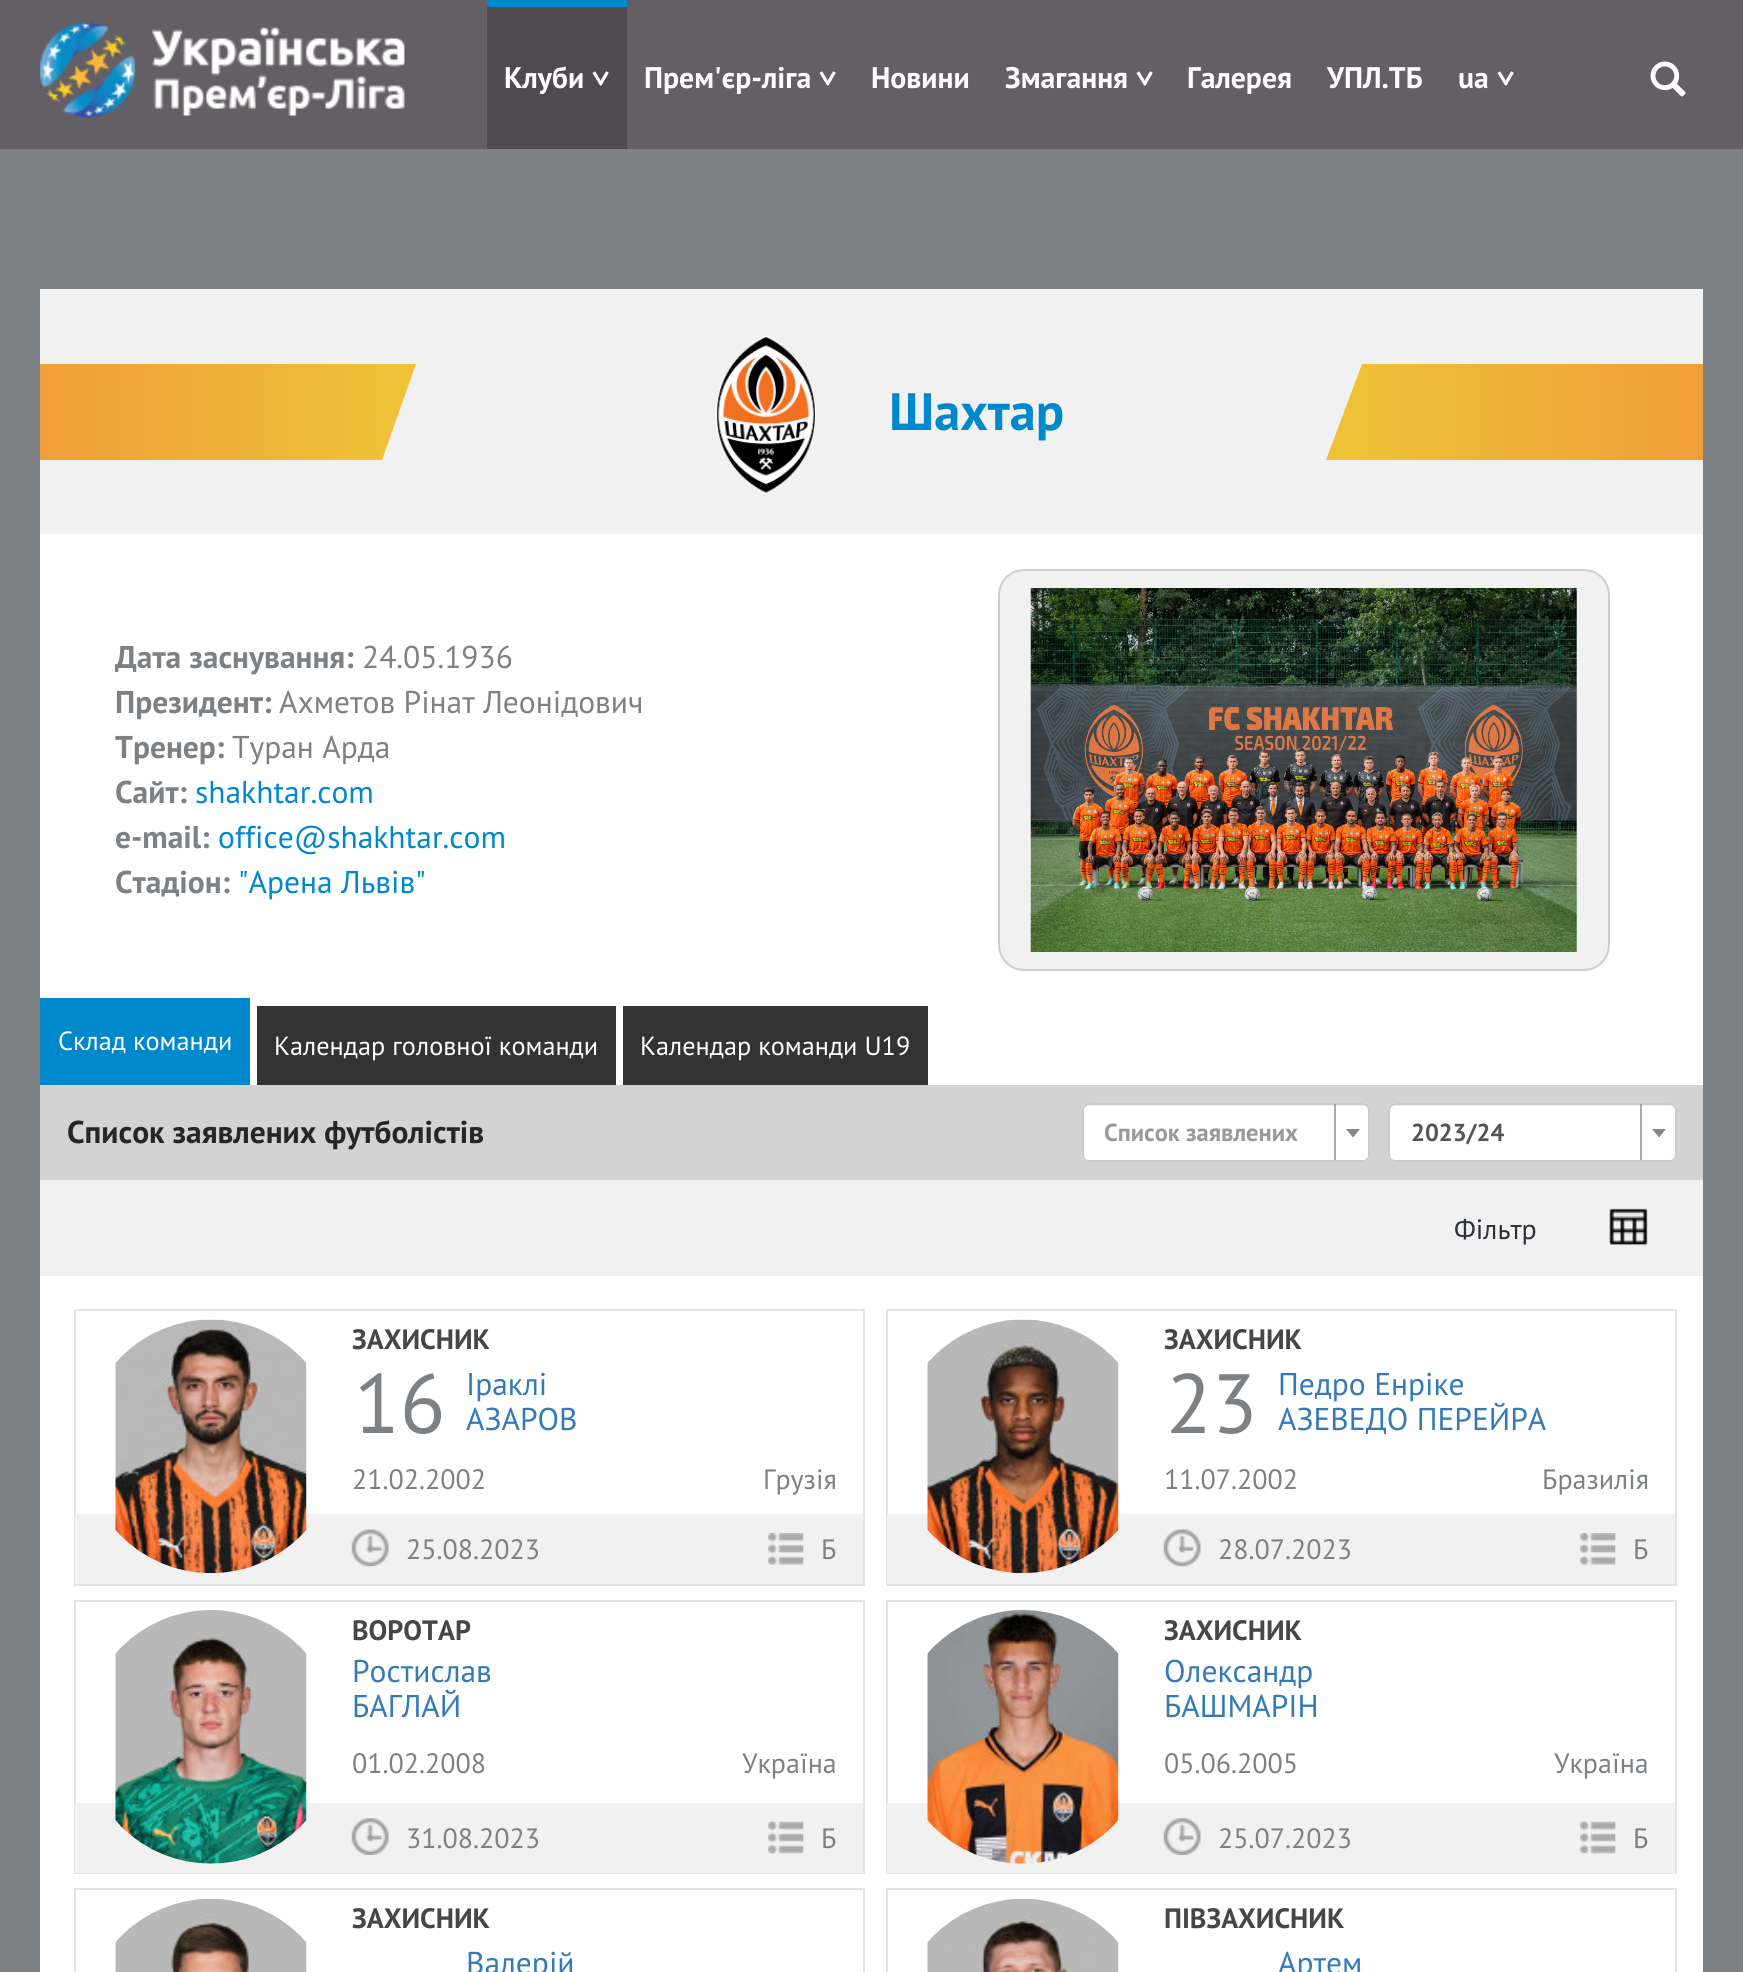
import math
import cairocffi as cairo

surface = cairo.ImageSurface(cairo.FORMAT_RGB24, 1743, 1972)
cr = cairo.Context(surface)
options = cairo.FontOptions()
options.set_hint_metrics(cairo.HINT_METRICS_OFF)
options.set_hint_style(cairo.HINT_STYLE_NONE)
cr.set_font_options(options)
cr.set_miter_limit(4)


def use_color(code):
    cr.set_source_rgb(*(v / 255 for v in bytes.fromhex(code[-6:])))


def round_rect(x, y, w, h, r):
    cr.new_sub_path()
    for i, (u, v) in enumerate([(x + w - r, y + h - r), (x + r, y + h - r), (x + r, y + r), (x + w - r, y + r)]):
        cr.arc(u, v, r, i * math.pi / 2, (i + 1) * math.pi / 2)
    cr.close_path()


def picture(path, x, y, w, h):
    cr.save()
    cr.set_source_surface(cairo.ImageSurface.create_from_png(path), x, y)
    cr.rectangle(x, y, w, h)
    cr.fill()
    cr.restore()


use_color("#7d8184")
cr.paint()
use_color("#645f64")
cr.rectangle(0, 0, 1743, 149)
cr.fill()
picture("img1.png", 40, 22, 365, 96)
use_color("#4f4a4f")
cr.rectangle(487, 7, 140, 142)
cr.fill()
use_color("#0088cc")
cr.rectangle(487, 0, 140, 7)
cr.fill()
cr.select_font_face("PT Sans", cairo.FONT_SLANT_NORMAL, cairo.FONT_WEIGHT_BOLD)
cr.set_font_size(29.75)
use_color("#ffffff")
cr.move_to(504, 88)
cr.show_text("Клуби")
cr.select_font_face("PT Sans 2", cairo.FONT_SLANT_NORMAL, cairo.FONT_WEIGHT_BOLD)
cr.set_font_size(31.5)
cr.save()
cr.translate(590, 70)
cr.rotate(90 * math.pi / 180)
cr.move_to(0, 0)
cr.show_text(">")
cr.restore()
cr.select_font_face("PT Sans", cairo.FONT_SLANT_NORMAL, cairo.FONT_WEIGHT_BOLD)
cr.set_font_size(29.75)
cr.move_to(644, 88)
cr.show_text("Прем'єр-ліга")
cr.select_font_face("PT Sans 2", cairo.FONT_SLANT_NORMAL, cairo.FONT_WEIGHT_BOLD)
cr.set_font_size(31.5)
cr.save()
cr.translate(817, 70)
cr.rotate(90 * math.pi / 180)
cr.move_to(0, 0)
cr.show_text(">")
cr.restore()
cr.select_font_face("PT Sans", cairo.FONT_SLANT_NORMAL, cairo.FONT_WEIGHT_BOLD)
cr.set_font_size(29.75)
cr.move_to(871, 88)
cr.show_text("Новини")
cr.move_to(1005, 88)
cr.show_text("Змагання")
cr.select_font_face("PT Sans 2", cairo.FONT_SLANT_NORMAL, cairo.FONT_WEIGHT_BOLD)
cr.set_font_size(31.5)
cr.save()
cr.translate(1134, 70)
cr.rotate(90 * math.pi / 180)
cr.move_to(0, 0)
cr.show_text(">")
cr.restore()
cr.select_font_face("PT Sans", cairo.FONT_SLANT_NORMAL, cairo.FONT_WEIGHT_BOLD)
cr.set_font_size(29.75)
cr.move_to(1187, 88)
cr.show_text("Галерея")
cr.move_to(1327, 88)
cr.show_text("УПЛ.ТБ")
cr.move_to(1458, 88)
cr.show_text("ua")
cr.select_font_face("PT Sans 2", cairo.FONT_SLANT_NORMAL, cairo.FONT_WEIGHT_BOLD)
cr.set_font_size(31.5)
cr.save()
cr.translate(1495, 70)
cr.rotate(90 * math.pi / 180)
cr.move_to(0, 0)
cr.show_text(">")
cr.restore()
picture("img2.png", 1650, 61, 36, 36)
use_color("#f2f1f1")
cr.rectangle(40, 289, 1663, 245)
cr.fill()
gradient = cairo.LinearGradient(382, 412, 40, 412)
gradient.add_color_stop_rgba(0, 0.937, 0.757, 0.216, 1)
gradient.add_color_stop_rgba(1, 0.937, 0.62, 0.216, 1)
cr.set_source(gradient)
cr.rectangle(40, 364, 342, 96)
cr.fill()
use_color("#efc137")
cr.new_path()
cr.move_to(382, 460)
cr.line_to(382, 364)
cr.line_to(416, 364)
cr.close_path()
cr.fill()
picture("img3.png", 716, 336, 100, 158)
cr.select_font_face("PT Sans", cairo.FONT_SLANT_NORMAL, cairo.FONT_WEIGHT_BOLD)
cr.set_font_size(52.5)
use_color("#0088cc")
cr.move_to(889, 430)
cr.show_text("Шахтар")
gradient = cairo.LinearGradient(1703, 412, 1362, 412)
gradient.add_color_stop_rgba(0, 0.937, 0.62, 0.216, 1)
gradient.add_color_stop_rgba(1, 0.937, 0.757, 0.216, 1)
cr.set_source(gradient)
cr.rectangle(1362, 364, 341, 96)
cr.fill()
use_color("#efc137")
cr.new_path()
cr.move_to(1362, 364)
cr.line_to(1362, 460)
cr.line_to(1326, 460)
cr.close_path()
cr.fill()
use_color("#ffffff")
cr.rectangle(40, 534, 1663, 1438)
cr.fill()
cr.set_font_size(31.5)
use_color("#7d8184")
cr.move_to(115, 668)
cr.show_text("Дата заснування:")
cr.select_font_face("PT Sans")
cr.move_to(362, 668)
cr.show_text("24.05.1936")
cr.select_font_face("PT Sans", cairo.FONT_SLANT_NORMAL, cairo.FONT_WEIGHT_BOLD)
cr.move_to(115, 713)
cr.show_text("Президент:")
cr.select_font_face("PT Sans")
cr.move_to(279, 713)
cr.show_text("Ахметов Рінат Леонідович")
cr.select_font_face("PT Sans", cairo.FONT_SLANT_NORMAL, cairo.FONT_WEIGHT_BOLD)
cr.move_to(115, 758)
cr.show_text("Тренер:")
cr.select_font_face("PT Sans")
cr.move_to(232, 758)
cr.show_text("Туран Арда")
cr.select_font_face("PT Sans", cairo.FONT_SLANT_NORMAL, cairo.FONT_WEIGHT_BOLD)
cr.move_to(115, 803)
cr.show_text("Сайт:")
cr.select_font_face("PT Sans")
use_color("#0088cc")
cr.move_to(195, 803)
cr.show_text("shakhtar.com")
cr.select_font_face("PT Sans", cairo.FONT_SLANT_NORMAL, cairo.FONT_WEIGHT_BOLD)
use_color("#7d8184")
cr.move_to(115, 848)
cr.show_text("e-mail:")
cr.select_font_face("PT Sans")
use_color("#0088cc")
cr.move_to(218, 848)
cr.show_text("office@shakhtar.com")
cr.select_font_face("PT Sans", cairo.FONT_SLANT_NORMAL, cairo.FONT_WEIGHT_BOLD)
use_color("#7d8184")
cr.move_to(115, 893)
cr.show_text("Стадіон:")
cr.select_font_face("PT Sans")
use_color("#0088cc")
cr.move_to(238, 893)
cr.show_text("\"Арена Львів\"")
use_color("#f1f1f1")
round_rect(999, 570, 610, 400, 25)
cr.fill_preserve()
use_color("#cecece")
cr.stroke()
picture("img4.png", 1030, 588, 547, 364)
use_color("#0088cc")
cr.rectangle(40, 998, 210, 87)
cr.fill()
cr.set_font_size(26.25)
use_color("#ffffff")
cr.move_to(58, 1050)
cr.show_text("Склад команди")
use_color("#333333")
cr.rectangle(257, 1006, 359, 79)
cr.fill()
use_color("#ffffff")
cr.move_to(274, 1055)
cr.show_text("Календар головної команди")
use_color("#333333")
cr.rectangle(623, 1006, 305, 79)
cr.fill()
use_color("#ffffff")
cr.move_to(640, 1055)
cr.show_text("Календар команди U19")
use_color("#d3d3d3")
cr.rectangle(40, 1085, 1663, 95)
cr.fill()
cr.select_font_face("PT Sans", cairo.FONT_SLANT_NORMAL, cairo.FONT_WEIGHT_BOLD)
cr.set_font_size(31.5)
use_color("#242628")
cr.move_to(67, 1143)
cr.show_text("Список заявлених футболістів")
use_color("#ffffff")
round_rect(1082, 1103, 288, 59, 7)
cr.fill()
use_color("#ececec")
cr.new_path()
cr.move_to(1088, 1106)
cr.line_to(1363, 1106)
cr.curve_to(1366, 1106, 1368, 1108, 1368, 1111)
cr.line_to(1368, 1158)
cr.curve_to(1369, 1157, 1369, 1156, 1369, 1155)
cr.line_to(1369, 1109)
cr.curve_to(1369, 1106, 1367, 1104, 1364, 1104)
cr.line_to(1088, 1104)
cr.curve_to(1085, 1104, 1083, 1106, 1083, 1109)
cr.line_to(1083, 1111)
cr.curve_to(1083, 1108, 1086, 1106, 1088, 1106)
cr.close_path()
cr.fill()
round_rect(1083, 1104, 286, 57, 6)
use_color("#cccccc")
cr.stroke()
cr.set_font_size(24.5)
use_color("#999999")
cr.move_to(1104, 1141)
cr.show_text("Список заявлених")
use_color("#aaaaaa")
cr.rectangle(1334, 1104, 2, 56)
cr.fill()
use_color("#888888")
cr.new_path()
cr.move_to(1346, 1129)
cr.line_to(1360, 1129)
cr.line_to(1353, 1137.5)
cr.close_path()
cr.fill()
use_color("#ffffff")
round_rect(1388, 1103, 289, 59, 7)
cr.fill()
use_color("#ececec")
cr.new_path()
cr.move_to(1395, 1106)
cr.line_to(1670, 1106)
cr.curve_to(1672, 1106, 1675, 1108, 1675, 1111)
cr.curve_to(1675, 1108, 1674, 1104, 1670, 1104)
cr.line_to(1394, 1104)
cr.curve_to(1390, 1105, 1390, 1108, 1390, 1111)
cr.curve_to(1390, 1108, 1392, 1106, 1395, 1106)
cr.close_path()
cr.fill()
round_rect(1389, 1104, 287, 57, 6)
use_color("#cccccc")
cr.stroke()
use_color("#555555")
cr.move_to(1411, 1141)
cr.show_text("2023/24")
use_color("#aaaaaa")
cr.rectangle(1640, 1104, 2, 56)
cr.fill()
use_color("#888888")
cr.new_path()
cr.move_to(1652, 1129)
cr.line_to(1666, 1129)
cr.line_to(1659, 1137.5)
cr.close_path()
cr.fill()
use_color("#f2f1f1")
cr.rectangle(40, 1180, 1663, 96)
cr.fill()
cr.select_font_face("PT Sans")
cr.set_font_size(28)
use_color("#2b323a")
cr.move_to(1454, 1239)
cr.show_text("Фільтр")
picture("img5.png", 1609, 1208, 39, 37)
cr.rectangle(75, 1310, 789, 275)
use_color("#e4e4e4")
cr.stroke()
use_color("#f2f1f1")
cr.rectangle(75, 1514, 788, 70)
cr.fill()
picture("img6.png", 115, 1319, 192, 255)
cr.select_font_face("PT Sans", cairo.FONT_SLANT_NORMAL, cairo.FONT_WEIGHT_BOLD)
use_color("#454647")
cr.move_to(352, 1349)
cr.show_text("ЗАХИСНИК")
cr.select_font_face("PT Sans")
cr.set_font_size(84)
use_color("#7d8184")
cr.move_to(354, 1433)
cr.show_text("16")
cr.set_font_size(31.5)
use_color("#337ab7")
cr.move_to(466, 1395)
cr.show_text("Іраклі")
cr.move_to(466, 1430)
cr.show_text("АЗАРОВ")
cr.set_font_size(28)
use_color("#7d8184")
cr.move_to(352, 1489)
cr.show_text("21.02.2002")
cr.move_to(763, 1489)
cr.show_text("Грузія")
picture("img7.png", 351, 1529, 38, 38)
cr.move_to(406, 1559)
cr.show_text("25.08.2023")
picture("img8.png", 768, 1533, 36, 32)
cr.move_to(821, 1559)
cr.show_text("Б")
cr.rectangle(887, 1310, 789, 275)
use_color("#e4e4e4")
cr.stroke()
use_color("#f2f1f1")
cr.rectangle(887, 1514, 788, 70)
cr.fill()
picture("img9.png", 927, 1319, 192, 255)
cr.select_font_face("PT Sans", cairo.FONT_SLANT_NORMAL, cairo.FONT_WEIGHT_BOLD)
use_color("#454647")
cr.move_to(1164, 1349)
cr.show_text("ЗАХИСНИК")
cr.select_font_face("PT Sans")
cr.set_font_size(84)
use_color("#7d8184")
cr.move_to(1166, 1433)
cr.show_text("23")
cr.set_font_size(31.5)
use_color("#337ab7")
cr.move_to(1278, 1395)
cr.show_text("Педро Енріке")
cr.move_to(1278, 1430)
cr.show_text("АЗЕВЕДО ПЕРЕЙРА")
cr.set_font_size(28)
use_color("#7d8184")
cr.move_to(1164, 1489)
cr.show_text("11.07.2002")
cr.move_to(1542, 1489)
cr.show_text("Бразилія")
picture("img10.png", 1163, 1529, 38, 38)
cr.move_to(1218, 1559)
cr.show_text("28.07.2023")
picture("img11.png", 1580, 1533, 36, 32)
cr.move_to(1633, 1559)
cr.show_text("Б")
cr.rectangle(75, 1601, 789, 272)
use_color("#e4e4e4")
cr.stroke()
use_color("#f2f1f1")
cr.rectangle(75, 1803, 788, 70)
cr.fill()
picture("img12.png", 115, 1610, 192, 254)
cr.select_font_face("PT Sans", cairo.FONT_SLANT_NORMAL, cairo.FONT_WEIGHT_BOLD)
use_color("#454647")
cr.move_to(352, 1640)
cr.show_text("ВОРОТАР")
cr.select_font_face("PT Sans")
cr.set_font_size(31.5)
use_color("#337ab7")
cr.move_to(352, 1682)
cr.show_text("Ростислав")
cr.move_to(352, 1717)
cr.show_text("БАГЛАЙ")
cr.set_font_size(28)
use_color("#7d8184")
cr.move_to(352, 1773)
cr.show_text("01.02.2008")
cr.move_to(742, 1773)
cr.show_text("Україна")
picture("img13.png", 351, 1818, 38, 37)
cr.move_to(406, 1848)
cr.show_text("31.08.2023")
picture("img14.png", 768, 1821, 36, 33)
cr.move_to(821, 1848)
cr.show_text("Б")
cr.rectangle(887, 1601, 789, 272)
use_color("#e4e4e4")
cr.stroke()
use_color("#f2f1f1")
cr.rectangle(887, 1803, 788, 70)
cr.fill()
picture("img15.png", 927, 1610, 192, 254)
cr.select_font_face("PT Sans", cairo.FONT_SLANT_NORMAL, cairo.FONT_WEIGHT_BOLD)
use_color("#454647")
cr.move_to(1164, 1640)
cr.show_text("ЗАХИСНИК")
cr.select_font_face("PT Sans")
cr.set_font_size(31.5)
use_color("#337ab7")
cr.move_to(1164, 1682)
cr.show_text("Олександр")
cr.move_to(1164, 1717)
cr.show_text("БАШМАРІН")
cr.set_font_size(28)
use_color("#7d8184")
cr.move_to(1164, 1773)
cr.show_text("05.06.2005")
cr.move_to(1554, 1773)
cr.show_text("Україна")
picture("img16.png", 1163, 1818, 38, 37)
cr.move_to(1218, 1848)
cr.show_text("25.07.2023")
picture("img17.png", 1580, 1821, 36, 33)
cr.move_to(1633, 1848)
cr.show_text("Б")
cr.rectangle(75, 1889, 789, 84)
use_color("#e4e4e4")
cr.stroke()
picture("img18.png", 115, 1899, 192, 73)
cr.select_font_face("PT Sans", cairo.FONT_SLANT_NORMAL, cairo.FONT_WEIGHT_BOLD)
use_color("#454647")
cr.move_to(352, 1928)
cr.show_text("ЗАХИСНИК")
cr.select_font_face("PT Sans")
cr.set_font_size(31.5)
use_color("#337ab7")
cr.move_to(466, 1974)
cr.show_text("Валерій")
cr.rectangle(887, 1889, 789, 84)
use_color("#e4e4e4")
cr.stroke()
picture("img19.png", 927, 1899, 192, 73)
cr.select_font_face("PT Sans", cairo.FONT_SLANT_NORMAL, cairo.FONT_WEIGHT_BOLD)
cr.set_font_size(28)
use_color("#454647")
cr.move_to(1164, 1928)
cr.show_text("ПІВЗАХИСНИК")
cr.select_font_face("PT Sans")
cr.set_font_size(31.5)
use_color("#337ab7")
cr.move_to(1278, 1974)
cr.show_text("Артем")
surface.write_to_png("result.png")
